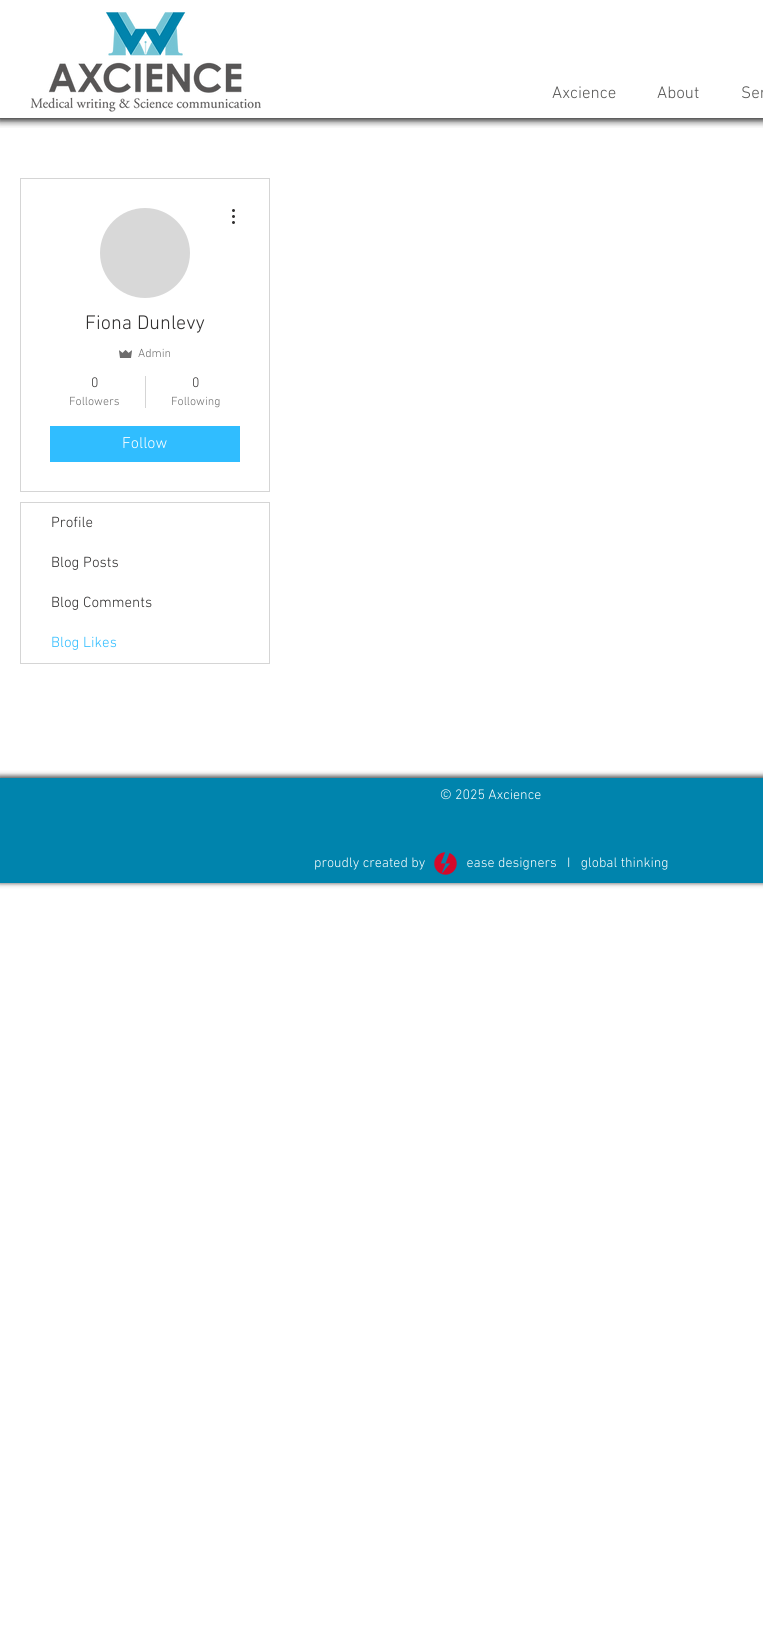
import math
import cairocffi as cairo

surface = cairo.ImageSurface(cairo.FORMAT_RGB24, 763, 1639)
cr = cairo.Context(surface)
options = cairo.FontOptions()
options.set_hint_metrics(cairo.HINT_METRICS_OFF)
options.set_hint_style(cairo.HINT_STYLE_NONE)
cr.set_font_options(options)
cr.set_miter_limit(4)


def use_color(code):
    cr.set_source_rgb(*(v / 255 for v in bytes.fromhex(code[-6:])))


def round_rect(x, y, w, h, r):
    cr.new_sub_path()
    for i, (u, v) in enumerate([(x + w - r, y + h - r), (x + r, y + h - r), (x + r, y + r), (x + w - r, y + r)]):
        cr.arc(u, v, r, i * math.pi / 2, (i + 1) * math.pi / 2)
    cr.close_path()


def shadow(x, y, w, h, r, blur, alpha):
    cr.push_group_with_content(cairo.CONTENT_ALPHA)
    cr.set_operator(cairo.OPERATOR_SOURCE)
    for i in range(15, -16, -2):
        e = blur * i / 6
        if min(w, h) + 2 * e > 0:
            cr.set_source_rgba(0, 0, 0, alpha * math.erfc((i - 1) / 8.5) / 2)
            round_rect(x - e, y - e, w + 2 * e, h + 2 * e, max(0, min(r + e + blur * .6, min(w, h) / 2 + e)))
            cr.fill()
    cr.mask(cr.pop_group())


def picture(path, x, y, w, h):
    cr.save()
    cr.set_source_surface(cairo.ImageSurface.create_from_png(path), x, y)
    cr.rectangle(x, y, w, h)
    cr.fill()
    cr.restore()


use_color("#ffffff")
cr.paint()
cr.save()
cr.rectangle(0, 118, 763, 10)
cr.clip()
use_color("#000000")
shadow(-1, 0, 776, 120, 0, 4, 1)
cr.restore()
picture("img1.png", 30, 12, 231, 100)
cr.select_font_face("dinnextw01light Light")
cr.set_font_size(17)
use_color("#575756")
cr.move_to(552, 98)
cr.show_text("Axcience")
cr.move_to(657, 98)
cr.show_text("About")
cr.move_to(741, 98)
cr.show_text("Ser")
cr.rectangle(20.5, 178.5, 249, 313)
use_color("#d5d5d5")
cr.set_line_width(1)
cr.stroke()
use_color("#d8d8d8")
cr.arc(145, 253, 45, 0, 2 * math.pi)
cr.fill()
picture("img2.png", 232, 209, 3, 15)
cr.set_font_size(20)
use_color("#2f2e2e")
cr.move_to(85, 329)
cr.show_text("Fiona Dunlevy")
picture("img3.png", 119, 350, 13, 8)
cr.set_font_size(12)
use_color("#6d6d6d")
cr.move_to(138, 357)
cr.show_text("Admin")
cr.set_font_size(14)
use_color("#2f2e2e")
cr.move_to(91, 387)
cr.show_text("0")
cr.set_font_size(12)
use_color("#6d6d6d")
cr.move_to(69, 405)
cr.show_text("Followers")
use_color("#d5d5d5")
cr.rectangle(145, 376, 1, 32)
cr.fill()
cr.set_font_size(14)
use_color("#2f2e2e")
cr.move_to(192, 387)
cr.show_text("0")
cr.set_font_size(12)
use_color("#6d6d6d")
cr.move_to(171, 405)
cr.show_text("Following")
use_color("#30bdff")
cr.rectangle(50, 426, 190, 36)
cr.fill()
cr.set_font_size(16)
use_color("#ffffff")
cr.move_to(122, 448)
cr.show_text("Follow")
cr.rectangle(20.5, 502.5, 249, 161)
use_color("#d5d5d5")
cr.stroke()
cr.set_font_size(15)
use_color("#2f2e2e")
cr.move_to(51, 527)
cr.show_text("Profile")
cr.move_to(51, 567)
cr.show_text("Blog Posts")
cr.move_to(51, 607)
cr.show_text("Blog Comments")
use_color("#30bdff")
cr.move_to(51, 647)
cr.show_text("Blog Likes")
use_color("#000000")
shadow(-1, 776, 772, 107, 0, 2.5, 0.7)
use_color("#0084ad")
cr.rectangle(0, 778, 763, 105)
cr.fill()
cr.set_font_size(14)
use_color("#ffffff")
cr.move_to(440, 799)
cr.show_text("© 2025 Axcience")
cr.move_to(314, 867)
cr.show_text("proudly created by            ease designers   I   global thinking")
picture("img4.png", 434, 852, 23, 23)
surface.write_to_png("result.png")
